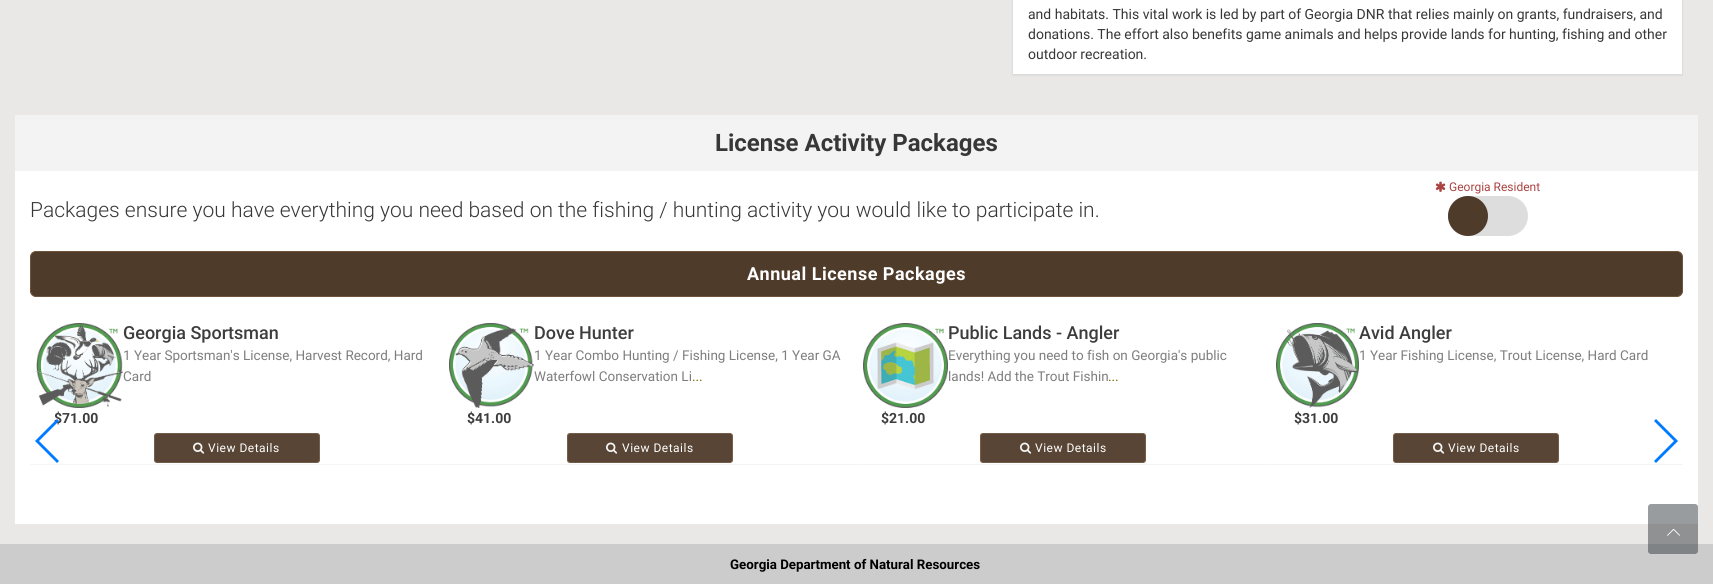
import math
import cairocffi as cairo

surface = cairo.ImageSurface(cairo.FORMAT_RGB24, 1713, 584)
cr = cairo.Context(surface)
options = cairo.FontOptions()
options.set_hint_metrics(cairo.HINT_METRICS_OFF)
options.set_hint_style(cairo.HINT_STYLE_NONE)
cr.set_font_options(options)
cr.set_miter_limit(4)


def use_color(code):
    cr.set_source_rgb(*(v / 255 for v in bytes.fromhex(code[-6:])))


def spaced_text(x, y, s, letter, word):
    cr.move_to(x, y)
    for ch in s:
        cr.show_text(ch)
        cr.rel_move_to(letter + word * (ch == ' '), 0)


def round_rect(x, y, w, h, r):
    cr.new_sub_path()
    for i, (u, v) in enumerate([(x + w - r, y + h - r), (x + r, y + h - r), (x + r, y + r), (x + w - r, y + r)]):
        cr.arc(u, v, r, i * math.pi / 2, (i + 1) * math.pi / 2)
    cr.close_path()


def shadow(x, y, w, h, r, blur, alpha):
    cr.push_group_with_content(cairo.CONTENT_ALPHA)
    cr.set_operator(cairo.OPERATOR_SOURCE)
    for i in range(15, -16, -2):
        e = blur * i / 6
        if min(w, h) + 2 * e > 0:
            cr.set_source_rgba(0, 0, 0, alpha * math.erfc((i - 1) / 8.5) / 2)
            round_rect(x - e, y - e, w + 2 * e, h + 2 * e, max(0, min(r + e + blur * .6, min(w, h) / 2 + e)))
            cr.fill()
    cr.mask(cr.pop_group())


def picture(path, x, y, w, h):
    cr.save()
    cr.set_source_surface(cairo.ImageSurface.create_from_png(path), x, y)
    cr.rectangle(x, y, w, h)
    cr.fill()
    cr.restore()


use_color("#eae8e6")
cr.paint()
use_color("#050505")
shadow(1012, -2, 671, 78, 0, 0.5, 0.05)
use_color("#ffffff")
cr.rectangle(1012.5, -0.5, 670, 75)
cr.fill_preserve()
use_color("#dddddd")
cr.set_line_width(1)
cr.stroke()
cr.select_font_face("Roboto")
cr.set_font_size(14)
use_color("#373737")
cr.move_to(1028, 19)
cr.show_text("and habitats. This vital work is led by part of Georgia DNR that relies mainly on grants, fundraisers, and")
cr.move_to(1028, 39)
cr.show_text("donations. The effort also benefits game animals and helps provide lands for hunting, fishing and other")
cr.move_to(1028, 59)
cr.show_text("outdoor recreation.")
use_color("#f3f3f3")
cr.rectangle(15, 115, 1683, 56)
cr.fill()
cr.select_font_face("Roboto", cairo.FONT_SLANT_NORMAL, cairo.FONT_WEIGHT_BOLD)
cr.set_font_size(24)
use_color("#373737")
cr.move_to(715, 151)
cr.show_text("License Activity Packages")
use_color("#ffffff")
cr.rectangle(15, 171, 1683, 353)
cr.fill()
picture("img1.png", 1435, 181, 11, 11)
cr.select_font_face("Roboto")
cr.set_font_size(12)
use_color("#a94442")
cr.move_to(1449, 191)
cr.show_text("Georgia Resident")
use_color("#dddddd")
round_rect(1448, 196, 80, 40, 20)
cr.fill()
use_color("#4f3b2a")
cr.arc(1468, 216, 20, 0, 2 * math.pi)
cr.fill()
cr.select_font_face("Roboto Light")
cr.set_font_size(21)
use_color("#373737")
cr.move_to(30, 217)
cr.show_text("Packages ensure you have everything you need based on the fishing / hunting activity you would like to participate in.")
use_color("#4f3b2a")
round_rect(30.5, 251.5, 1652, 45, 5.5)
cr.fill_preserve()
use_color("#70543c")
cr.stroke()
cr.select_font_face("Roboto", cairo.FONT_SLANT_NORMAL, cairo.FONT_WEIGHT_BOLD)
cr.set_font_size(18)
use_color("#ffffff")
spaced_text(747, 280, "Annual License Packages", 0.5, 0)
cr.save()
cr.rectangle(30, 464, 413, 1)
cr.clip()
use_color("#0d0d0d")
shadow(30, 318, 413, 147, 0, 0.5, 0.05)
cr.restore()
cr.set_font_size(14)
use_color("#3d3d3d")
cr.move_to(54, 423)
cr.show_text("$71.00")
use_color("#007aff")
cr.new_path()
cr.move_to(35, 441)
cr.line_to(57, 419)
cr.line_to(59, 421)
cr.line_to(39, 441)
cr.line_to(59, 461)
cr.line_to(57, 463)
cr.close_path()
cr.fill()
cr.select_font_face("Roboto Medium")
cr.set_font_size(18)
use_color("#3d3d3d")
cr.move_to(123, 339)
cr.show_text("Georgia Sportsman")
cr.select_font_face("Roboto")
cr.set_font_size(13.5)
use_color("#7e7e7e")
cr.move_to(123, 360)
cr.show_text("1 Year Sportsman's License, Harvest Record, Hard")
cr.move_to(123, 381)
cr.show_text("Card")
picture("img2.png", 36, 323, 87, 85)
use_color("#584535")
round_rect(154.5, 433.5, 165, 29, 2.5)
cr.fill_preserve()
use_color("#775d46")
cr.stroke()
picture("img3.png", 193, 442, 12, 12)
cr.set_font_size(12)
use_color("#ffffff")
spaced_text(208, 452, "View Details", 0.5, 0)
cr.save()
cr.rectangle(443, 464, 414, 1)
cr.clip()
use_color("#000000")
shadow(443, 318, 414, 147, 0, 0.5, 0.05)
cr.restore()
cr.select_font_face("Roboto Medium")
cr.set_font_size(18)
use_color("#3d3d3d")
cr.move_to(534, 339)
cr.show_text("Dove Hunter")
cr.select_font_face("Roboto")
cr.set_font_size(13.5)
use_color("#7e7e7e")
cr.move_to(534, 360)
cr.show_text("1 Year Combo Hunting / Fishing License, 1 Year GA")
cr.move_to(534, 381)
cr.show_text("Waterfowl Conservation Li")
use_color("#85680d")
cr.move_to(692, 381)
cr.show_text("...")
picture("img4.png", 449, 323, 85, 85)
cr.select_font_face("Roboto", cairo.FONT_SLANT_NORMAL, cairo.FONT_WEIGHT_BOLD)
cr.set_font_size(14)
use_color("#3d3d3d")
cr.move_to(467, 423)
cr.show_text("$41.00")
use_color("#584535")
round_rect(567.5, 433.5, 165, 29, 2.5)
cr.fill_preserve()
use_color("#775d46")
cr.stroke()
picture("img3.png", 606, 442, 12, 12)
cr.select_font_face("Roboto")
cr.set_font_size(12)
use_color("#ffffff")
spaced_text(622, 452, "View Details", 0.5, 0)
cr.save()
cr.rectangle(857, 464, 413, 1)
cr.clip()
use_color("#000000")
shadow(857, 318, 413, 147, 0, 0.5, 0.05)
cr.restore()
cr.select_font_face("Roboto Medium")
cr.set_font_size(18)
use_color("#3d3d3d")
cr.move_to(948, 339)
cr.show_text("Public Lands - Angler")
cr.select_font_face("Roboto")
cr.set_font_size(13.5)
use_color("#7e7e7e")
cr.move_to(948, 360)
cr.show_text("Everything you need to fish on Georgia's public")
cr.move_to(948, 381)
cr.show_text("lands! Add the Trout Fishin")
use_color("#85680d")
cr.move_to(1108, 381)
cr.show_text("...")
picture("img5.png", 863, 323, 85, 85)
cr.select_font_face("Roboto", cairo.FONT_SLANT_NORMAL, cairo.FONT_WEIGHT_BOLD)
cr.set_font_size(14)
use_color("#3d3d3d")
cr.move_to(881, 423)
cr.show_text("$21.00")
use_color("#584535")
round_rect(980.5, 433.5, 165, 29, 2.5)
cr.fill_preserve()
use_color("#775d46")
cr.stroke()
picture("img3.png", 1020, 442, 12, 12)
cr.select_font_face("Roboto")
cr.set_font_size(12)
use_color("#ffffff")
spaced_text(1035, 452, "View Details", 0.5, 0)
cr.save()
cr.rectangle(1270, 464, 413, 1)
cr.clip()
use_color("#000000")
shadow(1270, 318, 413, 147, 0, 0.5, 0.05)
cr.restore()
cr.select_font_face("Roboto Medium")
cr.set_font_size(18)
use_color("#3d3d3d")
cr.move_to(1359, 339)
cr.show_text("Avid Angler")
cr.select_font_face("Roboto")
cr.set_font_size(13.5)
use_color("#7e7e7e")
cr.move_to(1359, 360)
cr.show_text("1 Year Fishing License, Trout License, Hard Card")
picture("img6.png", 1276, 323, 83, 85)
cr.select_font_face("Roboto", cairo.FONT_SLANT_NORMAL, cairo.FONT_WEIGHT_BOLD)
cr.set_font_size(14)
use_color("#3d3d3d")
cr.move_to(1294, 423)
cr.show_text("$31.00")
use_color("#584535")
round_rect(1393.5, 433.5, 165, 29, 2.5)
cr.fill_preserve()
use_color("#775d46")
cr.stroke()
picture("img3.png", 1433, 442, 12, 12)
cr.select_font_face("Roboto")
cr.set_font_size(12)
use_color("#ffffff")
spaced_text(1448, 452, "View Details", 0.5, 0)
use_color("#007aff")
cr.new_path()
cr.move_to(1678, 441)
cr.line_to(1656, 463)
cr.line_to(1654, 461)
cr.line_to(1674, 441)
cr.line_to(1654, 421)
cr.line_to(1656, 419)
cr.close_path()
cr.fill()
use_color("#cccccc")
cr.rectangle(0, 544, 1713, 40)
cr.fill()
cr.set_source_rgba(0.204, 0.227, 0.251, 0.5)
round_rect(1648, 504, 50, 50, 3)
cr.fill()
picture("img7.png", 1667, 529, 13, 7)
cr.select_font_face("Roboto", cairo.FONT_SLANT_NORMAL, cairo.FONT_WEIGHT_BOLD)
cr.set_font_size(13.3)
use_color("#000000")
cr.move_to(730, 569)
cr.show_text("Georgia Department of Natural Resources")
surface.write_to_png("result.png")
